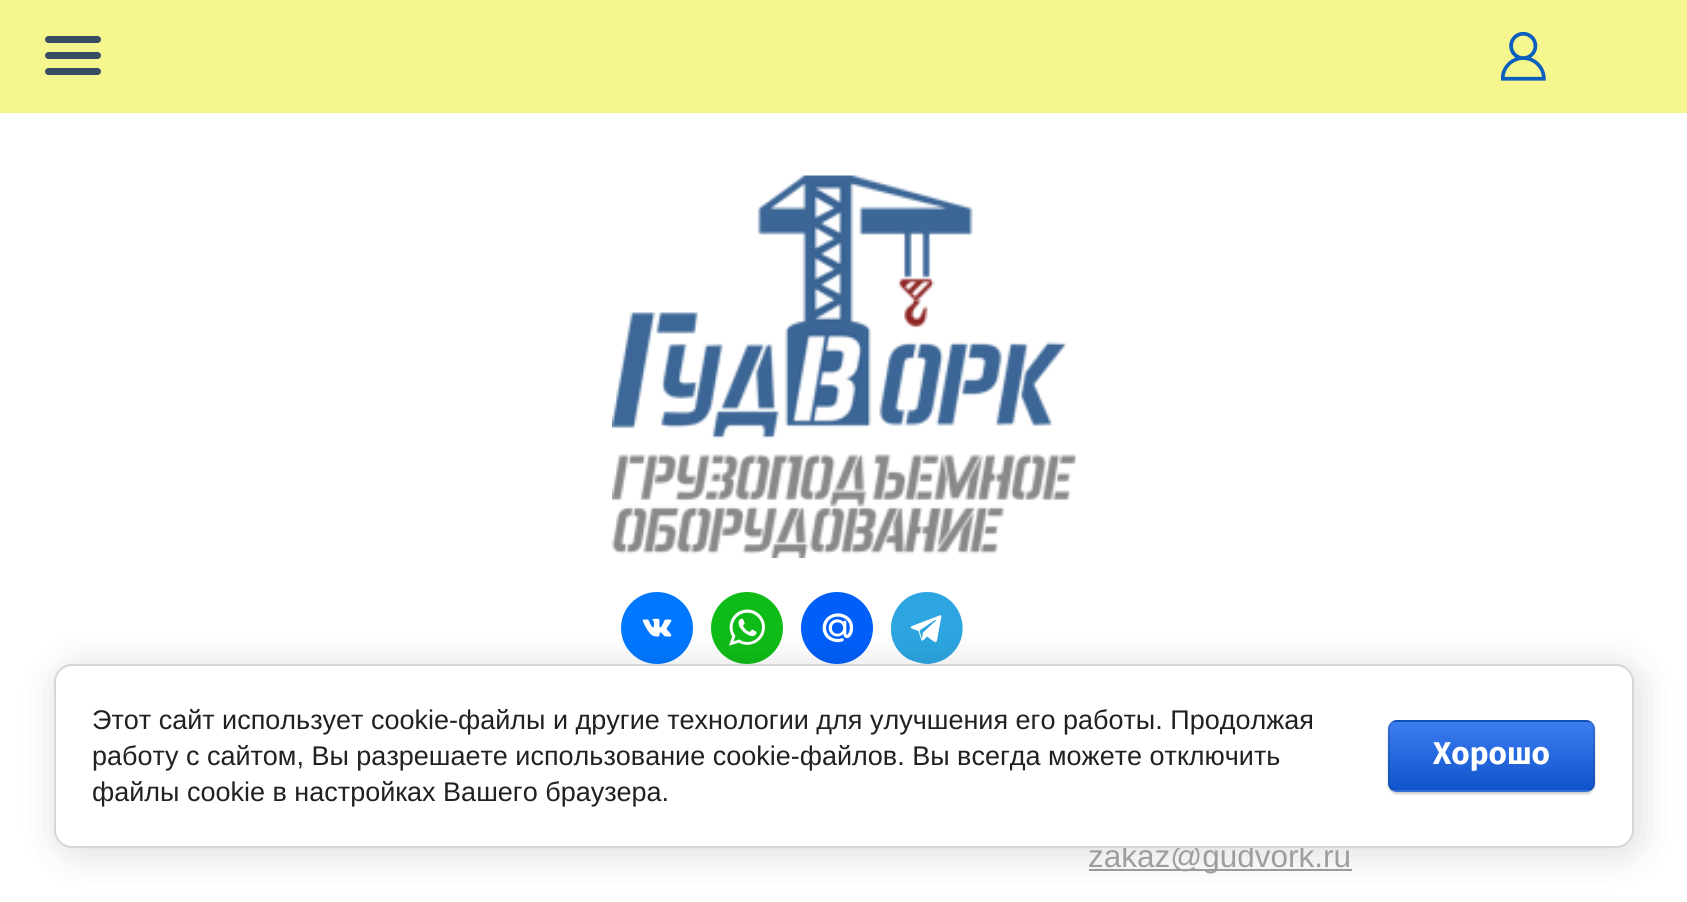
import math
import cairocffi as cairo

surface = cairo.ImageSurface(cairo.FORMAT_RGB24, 1687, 902)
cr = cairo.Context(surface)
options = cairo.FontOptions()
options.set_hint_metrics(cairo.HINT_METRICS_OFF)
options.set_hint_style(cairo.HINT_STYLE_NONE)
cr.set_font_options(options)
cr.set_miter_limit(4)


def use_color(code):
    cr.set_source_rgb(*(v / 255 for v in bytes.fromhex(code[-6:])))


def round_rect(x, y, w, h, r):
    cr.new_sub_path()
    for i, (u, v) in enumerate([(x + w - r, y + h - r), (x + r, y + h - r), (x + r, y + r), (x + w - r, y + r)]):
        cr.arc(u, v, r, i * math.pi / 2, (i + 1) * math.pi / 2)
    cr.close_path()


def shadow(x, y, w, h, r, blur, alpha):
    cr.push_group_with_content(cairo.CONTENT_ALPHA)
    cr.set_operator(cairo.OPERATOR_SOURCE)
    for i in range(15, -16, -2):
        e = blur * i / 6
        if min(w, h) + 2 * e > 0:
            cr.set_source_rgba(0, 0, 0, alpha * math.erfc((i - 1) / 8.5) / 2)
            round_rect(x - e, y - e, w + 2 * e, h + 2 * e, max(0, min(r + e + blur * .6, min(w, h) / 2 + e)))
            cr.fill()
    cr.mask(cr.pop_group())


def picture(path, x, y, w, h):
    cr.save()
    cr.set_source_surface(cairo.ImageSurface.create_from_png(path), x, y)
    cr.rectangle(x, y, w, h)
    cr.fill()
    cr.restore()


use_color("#ffffff")
cr.paint()
picture("img3.png", 621, 592, 72, 72)
picture("img4.png", 711, 592, 72, 72)
picture("img5.png", 801, 592, 72, 72)
cr.save()
cr.rectangle(891, 592, 72, 72)
cr.clip()
use_color("#2ca5e0")
cr.set_fill_rule(cairo.FILL_RULE_EVEN_ODD)
cr.new_path()
cr.move_to(927, 592)
cr.curve_to(961, 592, 976, 636, 948, 657)
cr.curve_to(943, 661, 936, 663, 929, 664)
cr.curve_to(922, 664, 915, 662, 908, 659)
cr.curve_to(877, 640, 891, 592, 927, 592)
cr.close_path()
cr.fill()
cr.restore()
use_color("#ffffff")
cr.set_fill_rule(cairo.FILL_RULE_EVEN_ODD)
cr.new_path()
cr.move_to(939.5, 615.5)
cr.line_to(912, 626)
cr.curve_to(910.5, 626.5, 910.5, 628, 911.5, 628.5)
cr.line_to(918.5, 631)
cr.line_to(921.5, 640.5)
cr.curve_to(923, 641.5, 926.5, 637, 927, 636.5)
cr.curve_to(938.5, 645, 936, 645, 939, 629)
cr.line_to(940.5, 621.5)
cr.curve_to(940.5, 621, 943, 613.5, 939.5, 615.5)
cr.close_path()
cr.move_to(919.5, 630.5)
cr.line_to(935, 620)
cr.line_to(936, 620)
cr.line_to(936, 620.5)
cr.line_to(923, 632.5)
cr.line_to(922, 639)
cr.close_path()
cr.fill()
use_color("#9e9e9e")
cr.rectangle(1089, 869, 263, 2)
cr.fill()
use_color("#000000")
shadow(59, 668, 1579, 185, 18, 20, 0.14)
cr.select_font_face("Liberation Sans")
cr.set_font_size(31.5)
use_color("#9e9e9e")
cr.move_to(1088, 867)
cr.show_text("zakaz@gudvork.ru")
use_color("#ffffff")
round_rect(55, 665, 1578, 182, 17)
cr.fill_preserve()
use_color("#d6d6d6")
cr.stroke()
cr.set_font_size(27)
use_color("#212121")
cr.move_to(92, 729)
cr.show_text("Этот сайт использует cookie-файлы и другие технологии для улучшения его работы. Продолжая")
cr.move_to(92, 765)
cr.show_text("работу с сайтом, Вы разрешаете использование cookie-файлов. Вы всегда можете отключить")
cr.move_to(92, 801)
cr.show_text("файлы cookie в настройках Вашего браузера.")
use_color("#000000")
shadow(1388, 722, 207, 72, 9, 1, 0.2)
cr.save()
cr.set_fill_rule(cairo.FILL_RULE_WINDING)
round_rect(1388, 720, 207, 72, 9)
cr.clip()
gradient = cairo.LinearGradient(1492, 655, 1492, 722)
gradient.add_color_stop_rgba(0, 0.231, 0.486, 0.937, 1)
gradient.add_color_stop_rgba(1, 0.067, 0.333, 0.8, 1)
cr.set_source(gradient)
cr.rectangle(1388, 720, 207, 2)
cr.fill()
gradient = cairo.LinearGradient(1492, 722, 1492, 790)
gradient.add_color_stop_rgba(0, 0.231, 0.486, 0.937, 1)
gradient.add_color_stop_rgba(1, 0.067, 0.333, 0.8, 1)
cr.set_source(gradient)
cr.rectangle(1388, 722, 207, 68)
cr.fill()
gradient = cairo.LinearGradient(1492, 790, 1492, 857)
gradient.add_color_stop_rgba(0, 0.231, 0.486, 0.937, 1)
gradient.add_color_stop_rgba(1, 0.067, 0.333, 0.8, 1)
cr.set_source(gradient)
cr.rectangle(1388, 790, 207, 2)
cr.fill()
cr.restore()
round_rect(1389, 721, 205, 70, 8)
cr.set_source_rgba(0, 0, 0, 0.1)
cr.stroke()
cr.select_font_face("Fira Sans", cairo.FONT_SLANT_NORMAL, cairo.FONT_WEIGHT_BOLD)
cr.set_font_size(31.5)
use_color("#ffffff")
cr.move_to(1433, 764)
cr.show_text("Хорошо")
use_color("#f6f68e")
cr.rectangle(0, 0, 1687, 113)
cr.fill()
use_color("#384c64")
round_rect(45, 36, 56, 7, 3.5)
cr.fill()
round_rect(45, 52, 56, 7, 3.5)
cr.fill()
round_rect(45, 68, 56, 7, 3.5)
cr.fill()
picture("img1.png", 1501, 32, 45, 49)
picture("img2.png", 612, 175, 464, 383)
surface.write_to_png("result.png")
